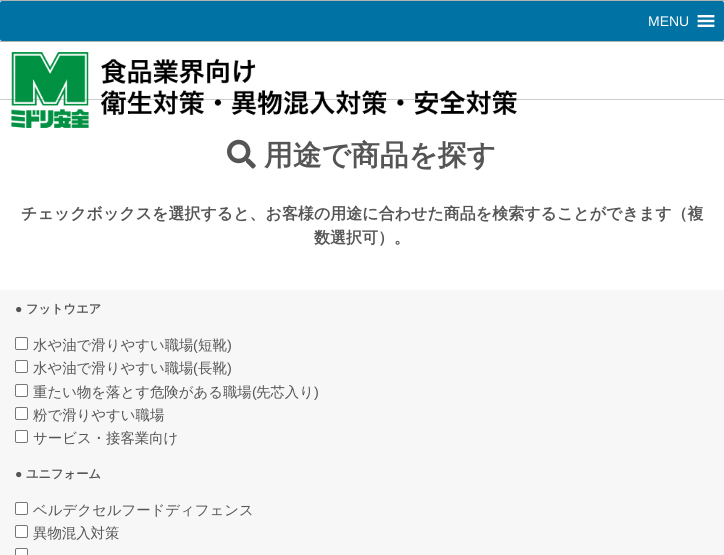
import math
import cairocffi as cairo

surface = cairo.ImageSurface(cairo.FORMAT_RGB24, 724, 555)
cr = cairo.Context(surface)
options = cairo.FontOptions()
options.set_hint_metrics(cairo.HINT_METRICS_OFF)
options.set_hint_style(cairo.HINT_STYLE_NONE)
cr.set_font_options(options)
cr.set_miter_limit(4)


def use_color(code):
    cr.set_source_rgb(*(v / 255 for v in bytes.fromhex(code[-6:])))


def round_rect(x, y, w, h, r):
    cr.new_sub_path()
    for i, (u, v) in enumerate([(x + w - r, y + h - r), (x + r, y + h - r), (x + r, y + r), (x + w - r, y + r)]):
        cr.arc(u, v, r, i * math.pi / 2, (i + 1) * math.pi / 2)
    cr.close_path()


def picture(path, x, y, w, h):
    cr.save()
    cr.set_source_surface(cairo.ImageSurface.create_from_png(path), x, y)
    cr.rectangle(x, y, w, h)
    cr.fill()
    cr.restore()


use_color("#ffffff")
cr.paint()
use_color("#cccccc")
cr.rectangle(0, 99, 724, 1)
cr.fill()
use_color("#b2b2b2")
cr.rectangle(0, 0, 724, 1)
cr.fill()
cr.rectangle(0, 41, 724, 1)
cr.fill()
use_color("#0072a4")
round_rect(0, 1, 724, 40, 2)
cr.fill()
cr.select_font_face("Liberation Sans")
cr.set_font_size(14)
use_color("#ffffff")
cr.move_to(648, 26)
cr.show_text("MENU")
picture("img1.png", 697, 15, 18, 12)
picture("img2.png", 11, 52, 506, 76)
picture("img3.png", 227, 139, 29, 30)
cr.select_font_face("WenQuanYi Zen Hei", cairo.FONT_SLANT_NORMAL, cairo.FONT_WEIGHT_BOLD)
cr.set_font_size(28.75)
use_color("#555555")
cr.move_to(264, 165)
cr.show_text("用途で商品を探す")
cr.set_font_size(16)
cr.move_to(21, 219)
cr.show_text("チェックボックスを選択すると、お客様の用途に合わせた商品を検索することができます（複")
cr.move_to(314, 243)
cr.show_text("数選択可）。")
use_color("#f7f7f7")
cr.rectangle(0, 290, 724, 265)
cr.fill()
cr.select_font_face("Liberation Sans", cairo.FONT_SLANT_NORMAL, cairo.FONT_WEIGHT_BOLD)
cr.set_font_size(12.25)
use_color("#555555")
cr.move_to(15, 313)
cr.show_text("●")
cr.select_font_face("WenQuanYi Zen Hei", cairo.FONT_SLANT_NORMAL, cairo.FONT_WEIGHT_BOLD)
cr.move_to(26, 313)
cr.show_text("フットウエア")
use_color("#ffffff")
round_rect(15.5, 337.5, 12, 12, 1.5)
cr.fill_preserve()
use_color("#767676")
cr.set_line_width(1)
cr.stroke()
cr.select_font_face("WenQuanYi Zen Hei Medium")
cr.set_font_size(14.4)
use_color("#555555")
cr.move_to(33, 350)
cr.show_text("水や油で滑りやすい職場")
cr.select_font_face("Liberation Sans")
cr.move_to(193, 350)
cr.show_text("(")
cr.select_font_face("WenQuanYi Zen Hei Medium")
cr.move_to(198, 350)
cr.show_text("短靴")
cr.select_font_face("Liberation Sans")
cr.move_to(227, 350)
cr.show_text(")")
use_color("#ffffff")
round_rect(15.5, 360.5, 12, 12, 1.5)
cr.fill_preserve()
use_color("#767676")
cr.stroke()
cr.select_font_face("WenQuanYi Zen Hei Medium")
use_color("#555555")
cr.move_to(33, 373)
cr.show_text("水や油で滑りやすい職場")
cr.select_font_face("Liberation Sans")
cr.move_to(193, 373)
cr.show_text("(")
cr.select_font_face("WenQuanYi Zen Hei Medium")
cr.move_to(198, 373)
cr.show_text("長靴")
cr.select_font_face("Liberation Sans")
cr.move_to(227, 373)
cr.show_text(")")
use_color("#ffffff")
round_rect(15.5, 384.5, 12, 12, 1.5)
cr.fill_preserve()
use_color("#767676")
cr.stroke()
cr.select_font_face("WenQuanYi Zen Hei Medium")
use_color("#555555")
cr.move_to(33, 397)
cr.show_text("重たい物を落とす危険がある職場")
cr.select_font_face("Liberation Sans")
cr.move_to(252, 397)
cr.show_text("(")
cr.select_font_face("WenQuanYi Zen Hei Medium")
cr.move_to(256, 397)
cr.show_text("先芯入り")
cr.select_font_face("Liberation Sans")
cr.move_to(314, 397)
cr.show_text(")")
use_color("#ffffff")
round_rect(15.5, 407.5, 12, 12, 1.5)
cr.fill_preserve()
use_color("#767676")
cr.stroke()
cr.select_font_face("WenQuanYi Zen Hei Medium")
use_color("#555555")
cr.move_to(33, 420)
cr.show_text("粉で滑りやすい職場")
use_color("#ffffff")
round_rect(15.5, 430.5, 12, 12, 1.5)
cr.fill_preserve()
use_color("#767676")
cr.stroke()
use_color("#555555")
cr.move_to(33, 443)
cr.show_text("サービス・接客業向け")
cr.select_font_face("Liberation Sans", cairo.FONT_SLANT_NORMAL, cairo.FONT_WEIGHT_BOLD)
cr.set_font_size(12.25)
cr.move_to(15, 478)
cr.show_text("●")
cr.select_font_face("WenQuanYi Zen Hei", cairo.FONT_SLANT_NORMAL, cairo.FONT_WEIGHT_BOLD)
cr.move_to(26, 478)
cr.show_text("ユニフォーム")
use_color("#ffffff")
round_rect(15.5, 502.5, 12, 12, 1.5)
cr.fill_preserve()
use_color("#767676")
cr.stroke()
cr.select_font_face("WenQuanYi Zen Hei Medium")
cr.set_font_size(14.4)
use_color("#555555")
cr.move_to(33, 515)
cr.show_text("ベルデクセルフードディフェンス")
use_color("#ffffff")
round_rect(15.5, 525.5, 12, 12, 1.5)
cr.fill_preserve()
use_color("#767676")
cr.stroke()
use_color("#555555")
cr.move_to(33, 538)
cr.show_text("異物混入対策")
use_color("#ffffff")
round_rect(15.5, 548.5, 12, 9, 1.5)
cr.fill_preserve()
use_color("#767676")
cr.stroke()
surface.write_to_png("result.png")
